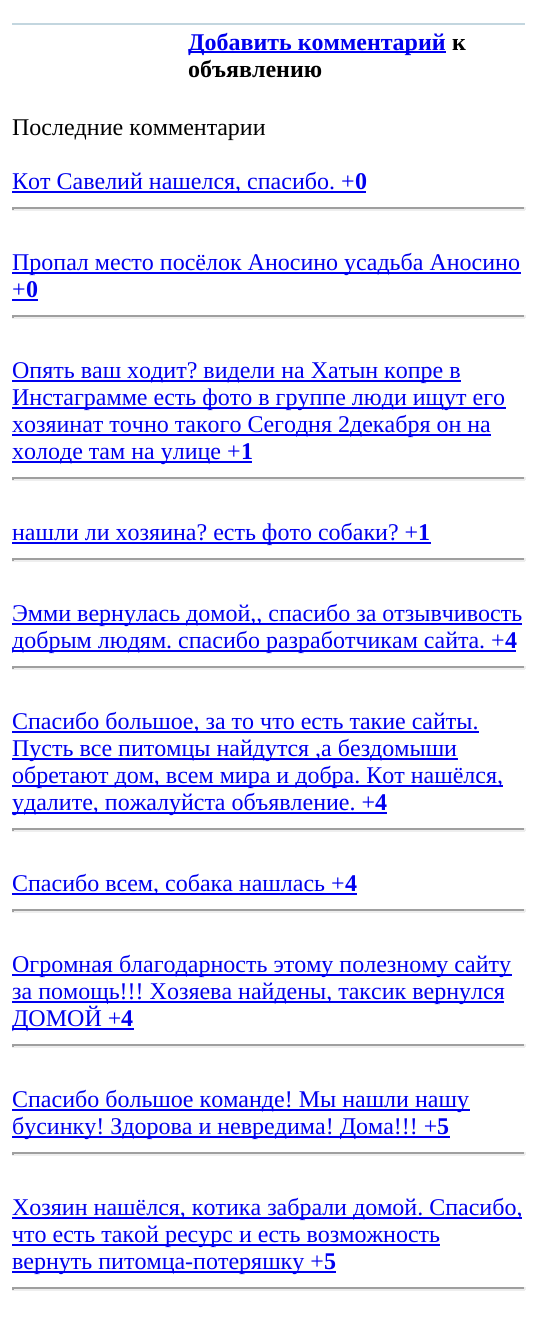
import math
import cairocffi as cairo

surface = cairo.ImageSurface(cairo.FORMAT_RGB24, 536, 1317)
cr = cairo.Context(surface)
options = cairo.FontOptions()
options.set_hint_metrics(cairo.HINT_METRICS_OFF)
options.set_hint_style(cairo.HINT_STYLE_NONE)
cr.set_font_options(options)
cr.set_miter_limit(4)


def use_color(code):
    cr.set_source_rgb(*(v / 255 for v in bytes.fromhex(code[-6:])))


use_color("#ffffff")
cr.paint()
use_color("#c3d6df")
cr.rectangle(12, 23, 513, 2)
cr.fill()
use_color("#0000ee")
cr.rectangle(189, 51, 257, 2)
cr.fill()
cr.select_font_face("Liberation Serif", cairo.FONT_SLANT_NORMAL, cairo.FONT_WEIGHT_BOLD)
cr.set_font_size(24)
cr.move_to(188, 50)
cr.show_text("Добавить комментарий")
use_color("#000000")
cr.move_to(452, 50)
cr.show_text("к")
cr.move_to(188, 77)
cr.show_text("объявлению")
cr.select_font_face("Liberation Serif")
cr.move_to(12, 135)
cr.show_text("Последние комментарии")
use_color("#0000ee")
cr.rectangle(12, 191, 354, 2)
cr.fill()
cr.move_to(12, 189)
cr.show_text("Кот Савелий нашелся, спасибо. +")
cr.select_font_face("Liberation Serif", cairo.FONT_SLANT_NORMAL, cairo.FONT_WEIGHT_BOLD)
cr.move_to(355, 189)
cr.show_text("0")
use_color("#9f9f9f")
cr.rectangle(12, 207, 513, 2)
cr.fill()
use_color("#eeeeee")
cr.rectangle(524, 207, 2, 3)
cr.fill()
cr.rectangle(12, 209, 513, 2)
cr.fill()
use_color("#9f9f9f")
cr.rectangle(12, 207, 2, 3)
cr.fill()
use_color("#0000ee")
cr.rectangle(12, 272, 509, 2)
cr.fill()
cr.select_font_face("Liberation Serif")
cr.move_to(12, 270)
cr.show_text("Пропал место посёлок Аносино усадьба Аносино")
cr.move_to(12, 297)
cr.show_text("+")
cr.select_font_face("Liberation Serif", cairo.FONT_SLANT_NORMAL, cairo.FONT_WEIGHT_BOLD)
cr.move_to(26, 297)
cr.show_text("0")
cr.rectangle(12, 299, 26, 2)
cr.fill()
use_color("#9f9f9f")
cr.rectangle(12, 315, 513, 2)
cr.fill()
use_color("#eeeeee")
cr.rectangle(524, 315, 2, 3)
cr.fill()
cr.rectangle(12, 317, 513, 2)
cr.fill()
use_color("#9f9f9f")
cr.rectangle(12, 315, 2, 3)
cr.fill()
use_color("#0000ee")
cr.rectangle(12, 380, 449, 2)
cr.fill()
cr.select_font_face("Liberation Serif")
cr.move_to(12, 378)
cr.show_text("Опять ваш ходит? видели на Хатын копре в")
cr.rectangle(12, 407, 494, 2)
cr.fill()
cr.move_to(12, 405)
cr.show_text("Инстаграмме есть фото в группе люди ищут его")
cr.rectangle(12, 434, 479, 2)
cr.fill()
cr.move_to(12, 432)
cr.show_text("хозяинат точно такого Сегодня 2декабря он на")
cr.rectangle(12, 461, 240, 2)
cr.fill()
cr.move_to(12, 459)
cr.show_text("холоде там на улице +")
cr.select_font_face("Liberation Serif", cairo.FONT_SLANT_NORMAL, cairo.FONT_WEIGHT_BOLD)
cr.move_to(241, 459)
cr.show_text("1")
use_color("#9f9f9f")
cr.rectangle(12, 477, 513, 2)
cr.fill()
use_color("#eeeeee")
cr.rectangle(524, 477, 2, 3)
cr.fill()
cr.rectangle(12, 479, 513, 2)
cr.fill()
use_color("#9f9f9f")
cr.rectangle(12, 477, 2, 3)
cr.fill()
use_color("#0000ee")
cr.rectangle(12, 542, 419, 2)
cr.fill()
cr.select_font_face("Liberation Serif")
cr.move_to(12, 540)
cr.show_text("нашли ли хозяина? есть фото собаки? +")
cr.select_font_face("Liberation Serif", cairo.FONT_SLANT_NORMAL, cairo.FONT_WEIGHT_BOLD)
cr.move_to(418, 540)
cr.show_text("1")
use_color("#9f9f9f")
cr.rectangle(12, 558, 513, 2)
cr.fill()
use_color("#eeeeee")
cr.rectangle(524, 558, 2, 3)
cr.fill()
cr.rectangle(12, 560, 513, 2)
cr.fill()
use_color("#9f9f9f")
cr.rectangle(12, 558, 2, 3)
cr.fill()
use_color("#0000ee")
cr.rectangle(12, 623, 510, 2)
cr.fill()
cr.select_font_face("Liberation Serif")
cr.move_to(12, 621)
cr.show_text("Эмми вернулась домой,, спасибо за отзывчивость")
cr.rectangle(12, 650, 504, 2)
cr.fill()
cr.move_to(12, 648)
cr.show_text("добрым людям. спасибо разработчикам сайта. +")
cr.select_font_face("Liberation Serif", cairo.FONT_SLANT_NORMAL, cairo.FONT_WEIGHT_BOLD)
cr.move_to(505, 648)
cr.show_text("4")
use_color("#9f9f9f")
cr.rectangle(12, 666, 513, 2)
cr.fill()
use_color("#eeeeee")
cr.rectangle(524, 666, 2, 3)
cr.fill()
cr.rectangle(12, 668, 513, 2)
cr.fill()
use_color("#9f9f9f")
cr.rectangle(12, 666, 2, 3)
cr.fill()
use_color("#0000ee")
cr.rectangle(12, 731, 467, 2)
cr.fill()
cr.select_font_face("Liberation Serif")
cr.move_to(12, 729)
cr.show_text("Спасибо большое, за то что есть такие сайты.")
cr.rectangle(12, 758, 446, 2)
cr.fill()
cr.move_to(12, 756)
cr.show_text("Пусть все питомцы найдутся ,а бездомыши")
cr.rectangle(12, 785, 491, 2)
cr.fill()
cr.move_to(12, 783)
cr.show_text("обретают дом, всем мира и добра. Кот нашёлся,")
cr.rectangle(12, 812, 375, 2)
cr.fill()
cr.move_to(12, 810)
cr.show_text("удалите, пожалуйста объявление. +")
cr.select_font_face("Liberation Serif", cairo.FONT_SLANT_NORMAL, cairo.FONT_WEIGHT_BOLD)
cr.move_to(375, 810)
cr.show_text("4")
use_color("#9f9f9f")
cr.rectangle(12, 828, 513, 2)
cr.fill()
use_color("#eeeeee")
cr.rectangle(524, 828, 2, 3)
cr.fill()
cr.rectangle(12, 830, 513, 2)
cr.fill()
use_color("#9f9f9f")
cr.rectangle(12, 828, 2, 3)
cr.fill()
use_color("#0000ee")
cr.rectangle(12, 893, 345, 2)
cr.fill()
cr.select_font_face("Liberation Serif")
cr.move_to(12, 891)
cr.show_text("Спасибо всем, собака нашлась +")
cr.select_font_face("Liberation Serif", cairo.FONT_SLANT_NORMAL, cairo.FONT_WEIGHT_BOLD)
cr.move_to(345, 891)
cr.show_text("4")
use_color("#9f9f9f")
cr.rectangle(12, 909, 513, 2)
cr.fill()
use_color("#eeeeee")
cr.rectangle(524, 909, 2, 3)
cr.fill()
cr.rectangle(12, 911, 513, 2)
cr.fill()
use_color("#9f9f9f")
cr.rectangle(12, 909, 2, 3)
cr.fill()
use_color("#0000ee")
cr.rectangle(12, 974, 500, 2)
cr.fill()
cr.select_font_face("Liberation Serif")
cr.move_to(12, 972)
cr.show_text("Огромная благодарность этому полезному сайту")
cr.rectangle(12, 1001, 492, 2)
cr.fill()
cr.move_to(12, 999)
cr.show_text("за помощь!!! Хозяева найдены, таксик вернулся")
cr.rectangle(12, 1028, 122, 2)
cr.fill()
cr.move_to(12, 1026)
cr.show_text("ДОМОЙ +")
cr.select_font_face("Liberation Serif", cairo.FONT_SLANT_NORMAL, cairo.FONT_WEIGHT_BOLD)
cr.move_to(121, 1026)
cr.show_text("4")
use_color("#9f9f9f")
cr.rectangle(12, 1044, 513, 2)
cr.fill()
use_color("#eeeeee")
cr.rectangle(524, 1044, 2, 3)
cr.fill()
cr.rectangle(12, 1046, 513, 2)
cr.fill()
use_color("#9f9f9f")
cr.rectangle(12, 1044, 2, 3)
cr.fill()
use_color("#0000ee")
cr.rectangle(12, 1109, 458, 2)
cr.fill()
cr.select_font_face("Liberation Serif")
cr.move_to(12, 1107)
cr.show_text("Спасибо большое команде! Мы нашли нашу")
cr.rectangle(12, 1136, 438, 2)
cr.fill()
cr.move_to(12, 1134)
cr.show_text("бусинку! Здорова и невредима! Дома!!! +")
cr.select_font_face("Liberation Serif", cairo.FONT_SLANT_NORMAL, cairo.FONT_WEIGHT_BOLD)
cr.move_to(437, 1134)
cr.show_text("5")
use_color("#9f9f9f")
cr.rectangle(12, 1152, 513, 2)
cr.fill()
use_color("#eeeeee")
cr.rectangle(524, 1152, 2, 3)
cr.fill()
cr.rectangle(12, 1154, 513, 2)
cr.fill()
use_color("#9f9f9f")
cr.rectangle(12, 1152, 2, 3)
cr.fill()
use_color("#0000ee")
cr.rectangle(12, 1217, 510, 2)
cr.fill()
cr.select_font_face("Liberation Serif")
cr.move_to(12, 1215)
cr.show_text("Хозяин нашёлся, котика забрали домой. Спасибо,")
cr.rectangle(12, 1244, 428, 2)
cr.fill()
cr.move_to(12, 1242)
cr.show_text("что есть такой ресурс и есть возможность")
cr.rectangle(12, 1271, 324, 2)
cr.fill()
cr.move_to(12, 1269)
cr.show_text("вернуть питомца-потеряшку +")
cr.select_font_face("Liberation Serif", cairo.FONT_SLANT_NORMAL, cairo.FONT_WEIGHT_BOLD)
cr.move_to(324, 1269)
cr.show_text("5")
use_color("#9f9f9f")
cr.rectangle(12, 1287, 513, 2)
cr.fill()
use_color("#eeeeee")
cr.rectangle(524, 1287, 2, 3)
cr.fill()
cr.rectangle(12, 1289, 513, 2)
cr.fill()
use_color("#9f9f9f")
cr.rectangle(12, 1287, 2, 3)
cr.fill()
surface.write_to_png("result.png")
